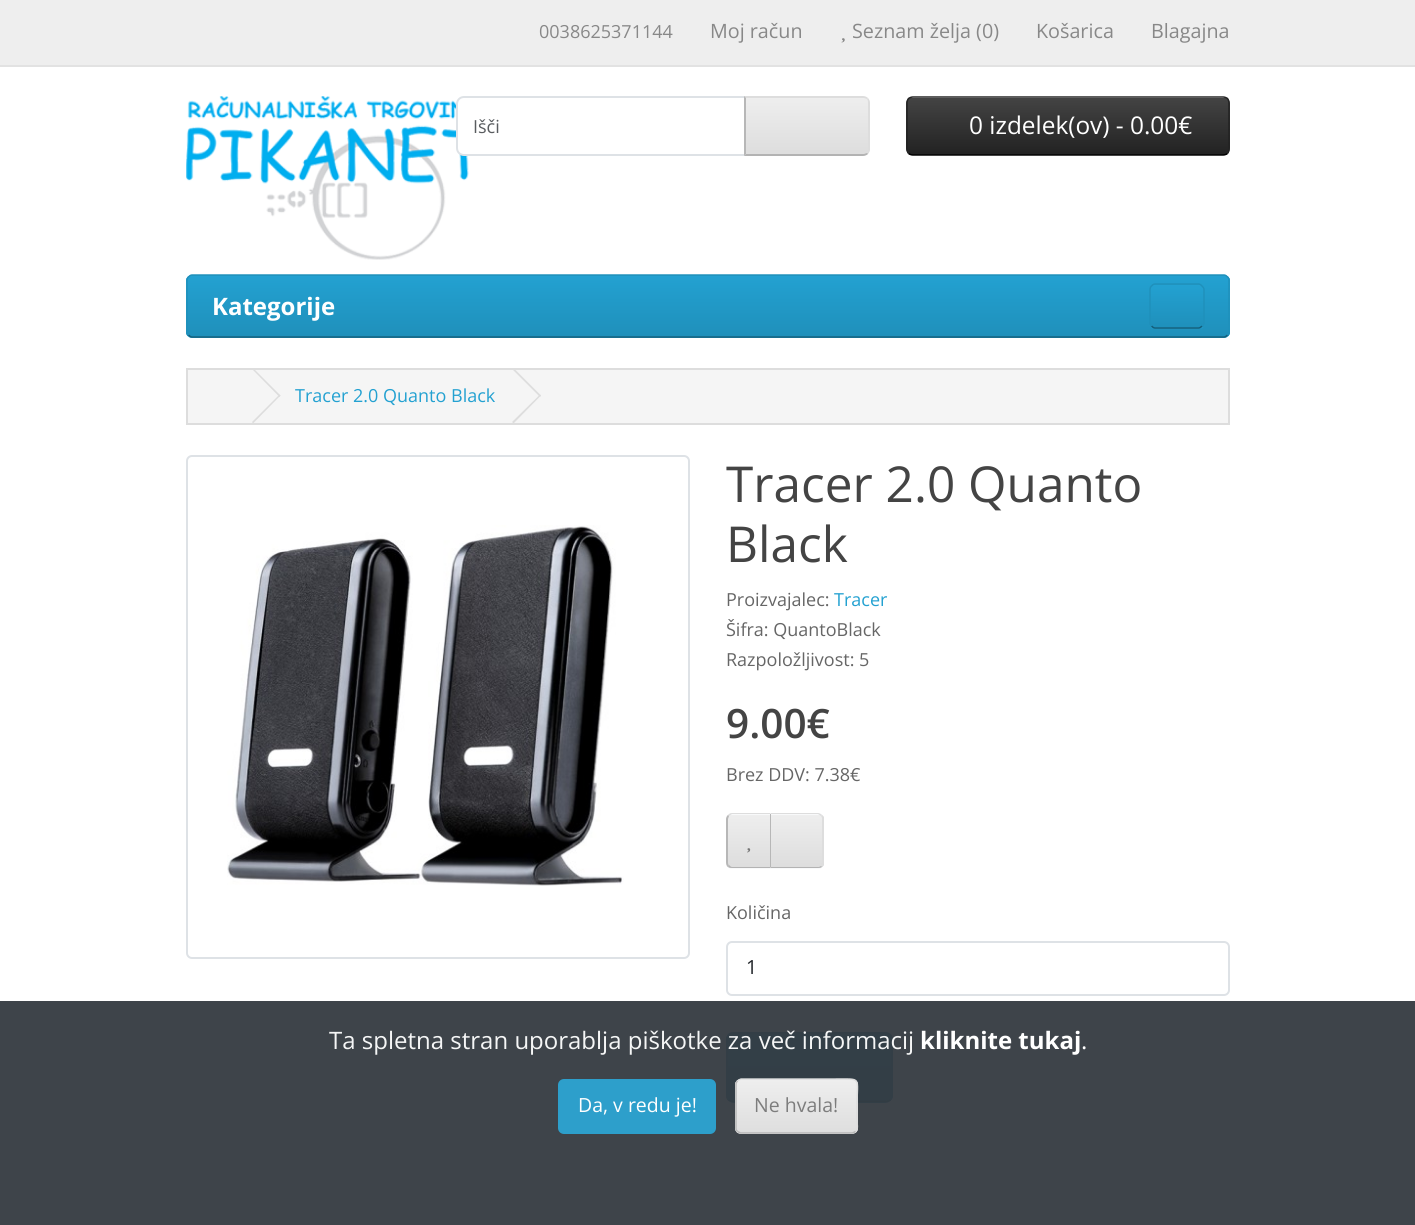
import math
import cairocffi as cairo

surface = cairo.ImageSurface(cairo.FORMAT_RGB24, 1415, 1225)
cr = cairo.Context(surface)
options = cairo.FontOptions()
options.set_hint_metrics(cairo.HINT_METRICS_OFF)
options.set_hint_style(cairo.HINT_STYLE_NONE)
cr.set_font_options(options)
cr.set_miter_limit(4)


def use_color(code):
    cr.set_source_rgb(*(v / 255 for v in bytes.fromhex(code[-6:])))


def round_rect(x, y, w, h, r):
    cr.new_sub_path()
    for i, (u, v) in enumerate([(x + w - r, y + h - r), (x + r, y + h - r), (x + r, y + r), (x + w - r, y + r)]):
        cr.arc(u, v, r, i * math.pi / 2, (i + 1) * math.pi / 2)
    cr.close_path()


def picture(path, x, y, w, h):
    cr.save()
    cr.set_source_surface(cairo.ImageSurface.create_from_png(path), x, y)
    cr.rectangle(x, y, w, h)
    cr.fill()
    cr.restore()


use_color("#ffffff")
cr.paint()
use_color("#3e444a")
cr.rectangle(0, 1001, 1415, 224)
cr.fill()
use_color("#eeeeee")
cr.rectangle(0, 0, 1415, 65)
cr.fill()
use_color("#e2e2e2")
cr.rectangle(0, 65, 1415, 2)
cr.fill()
cr.select_font_face("Open Sans")
cr.set_font_size(18)
use_color("#888888")
cr.move_to(539, 38)
cr.show_text("0038625371144")
cr.set_font_size(19.75)
cr.move_to(710, 38)
cr.show_text("Moj račun")
picture("img1.png", 841, 38, 4, 5)
cr.move_to(852, 38)
cr.show_text("Seznam želja (0)")
cr.move_to(1036, 38)
cr.show_text("Košarica")
cr.move_to(1151, 38)
cr.show_text("Blagajna")
picture("img2.png", 186, 96, 284, 164)
use_color("#ffffff")
cr.new_path()
cr.move_to(464, 97)
cr.line_to(745, 97)
cr.line_to(745, 155)
cr.line_to(464, 155)
cr.curve_to(460, 155, 457, 152, 457, 148)
cr.line_to(457, 104)
cr.curve_to(457, 100, 460, 97, 464, 97)
cr.close_path()
cr.fill_preserve()
use_color("#dee2e6")
cr.stroke()
cr.set_font_size(18)
use_color("#595c5f")
cr.move_to(473, 133)
cr.show_text("Išči")
cr.save()
cr.new_path()
cr.move_to(744, 96)
cr.line_to(862, 96)
cr.curve_to(866.5, 96, 870, 99.5, 870, 104)
cr.line_to(870, 148)
cr.curve_to(870, 152.5, 866.5, 156, 862, 156)
cr.line_to(744, 156)
cr.close_path()
cr.clip()
gradient = cairo.LinearGradient(807, 98, 807, 155)
gradient.add_color_stop_rgba(0, 0.933, 0.933, 0.933, 1)
gradient.add_color_stop_rgba(1, 0.867, 0.867, 0.867, 1)
cr.set_source(gradient)
cr.rectangle(745, 98, 125, 57)
cr.fill()
cr.restore()
use_color("#dddddd")
cr.new_path()
cr.move_to(744, 96)
cr.line_to(746, 98)
cr.line_to(864, 98)
cr.line_to(867, 99)
cr.line_to(868, 98)
cr.curve_to(867, 97, 865, 96, 863, 96)
cr.close_path()
cr.fill()
cr.new_path()
cr.move_to(870, 149)
cr.line_to(870, 103)
cr.curve_to(870, 101, 869, 99, 868, 98)
cr.line_to(867, 99)
cr.curve_to(868, 100, 868, 102, 868, 103)
cr.line_to(868, 149)
cr.curve_to(868, 150, 868, 152, 867, 153)
cr.line_to(868, 154)
cr.curve_to(869, 153, 870, 151, 870, 149)
cr.close_path()
cr.fill()
use_color("#b3b3b3")
cr.new_path()
cr.move_to(863, 156)
cr.curve_to(865, 156, 867, 155, 868, 154)
cr.line_to(867, 153)
cr.line_to(864, 154)
cr.line_to(746, 154)
cr.line_to(744, 156)
cr.close_path()
cr.fill()
use_color("#b7b7b7")
cr.new_path()
cr.move_to(744, 96)
cr.line_to(744, 156)
cr.line_to(746, 154)
cr.line_to(746, 98)
cr.close_path()
cr.fill()
cr.save()
round_rect(906, 96, 324, 60, 8)
cr.clip()
gradient = cairo.LinearGradient(1068, 97, 1068, 155)
gradient.add_color_stop_rgba(0, 0.267, 0.267, 0.267, 1)
gradient.add_color_stop_rgba(1, 0.133, 0.133, 0.133, 1)
cr.set_source(gradient)
cr.rectangle(906, 98, 324, 57)
cr.fill()
cr.restore()
cr.new_path()
cr.move_to(1227.5, 153.5)
cr.curve_to(1226, 154.5, 1224.5, 155, 1223, 155)
cr.line_to(913, 155)
cr.curve_to(911.5, 155, 910, 154.5, 908.5, 153.5)
use_color("#000000")
cr.set_line_width(1.5)
cr.stroke()
cr.new_path()
cr.move_to(908.5, 153.5)
cr.curve_to(907.5, 152, 907, 150.5, 907, 149)
cr.line_to(907, 103)
cr.curve_to(907, 101.5, 907.5, 100, 908.5, 98.5)
cr.curve_to(910, 97.5, 911.5, 97, 913, 97)
cr.line_to(1223, 97)
cr.curve_to(1224.5, 97, 1226, 97.5, 1227.5, 98.5)
cr.curve_to(1228.5, 100, 1229, 101.5, 1229, 103)
cr.line_to(1229, 149)
cr.curve_to(1229, 150.5, 1228.5, 152, 1227.5, 153.5)
use_color("#222222")
cr.stroke()
cr.set_font_size(24.4)
use_color("#ffffff")
cr.move_to(969, 134)
cr.show_text("0 izdelek(ov) - 0.00€")
use_color("#229ac8")
round_rect(186, 275, 1044, 63, 6)
cr.fill()
cr.save()
round_rect(186, 275, 1044, 63, 6)
cr.clip()
gradient = cairo.LinearGradient(708, 276, 708, 336)
gradient.add_color_stop_rgba(0, 0.137, 0.631, 0.82, 1)
gradient.add_color_stop_rgba(1, 0.122, 0.565, 0.733, 1)
cr.set_source(gradient)
cr.rectangle(186, 276, 1044, 60)
cr.fill()
cr.restore()
cr.new_path()
cr.move_to(1227.5, 335)
cr.curve_to(1226.5, 336, 1225.5, 337, 1224, 337)
cr.line_to(192, 337)
cr.curve_to(190.5, 337, 189.5, 336, 188.5, 335)
use_color("#145e7a")
cr.stroke()
cr.new_path()
cr.move_to(188.5, 335)
cr.curve_to(187.5, 334, 187, 333, 187, 331.5)
cr.line_to(187, 280.5)
cr.curve_to(187, 279, 187.5, 278, 188.5, 277)
cr.curve_to(189.5, 276, 190.5, 275, 192, 275)
cr.line_to(1224, 275)
cr.curve_to(1225.5, 275, 1226.5, 276, 1227.5, 277)
cr.curve_to(1228.5, 278, 1229, 279, 1229, 280.5)
cr.line_to(1229, 331.5)
cr.curve_to(1229, 333, 1228.5, 334, 1227.5, 335)
use_color("#1f90bb")
cr.stroke()
cr.select_font_face("Open Sans", cairo.FONT_SLANT_NORMAL, cairo.FONT_WEIGHT_BOLD)
cr.set_font_size(24)
use_color("#ffffff")
cr.move_to(212, 315)
cr.show_text("Kategorije")
use_color("#229ac8")
round_rect(1149, 284, 56, 45, 6)
cr.fill()
cr.save()
round_rect(1149, 284, 56, 45, 6)
cr.clip()
gradient = cairo.LinearGradient(1177, 285, 1177, 327)
gradient.add_color_stop_rgba(0, 0.137, 0.631, 0.82, 1)
gradient.add_color_stop_rgba(1, 0.122, 0.565, 0.733, 1)
cr.set_source(gradient)
cr.rectangle(1149, 285, 56, 42)
cr.fill()
cr.restore()
cr.new_path()
cr.move_to(1202, 326)
cr.curve_to(1201, 327, 1200, 328, 1198.5, 328)
cr.line_to(1155, 328)
cr.curve_to(1153.5, 328, 1152.5, 327, 1151.5, 326)
use_color("#145e7a")
cr.stroke()
cr.new_path()
cr.move_to(1151.5, 326)
cr.curve_to(1150.5, 325, 1150, 324, 1150, 322.5)
cr.line_to(1150, 289.5)
cr.curve_to(1150, 288, 1150.5, 287, 1151.5, 286)
cr.curve_to(1152.5, 285, 1153.5, 284, 1155, 284)
cr.line_to(1198.5, 284)
cr.curve_to(1200, 284, 1201, 285, 1202, 286)
cr.curve_to(1203, 287, 1204, 288, 1204, 289.5)
cr.line_to(1204, 322.5)
cr.curve_to(1204, 324, 1203, 325, 1202, 326)
use_color("#1f90bb")
cr.stroke()
use_color("#f5f5f5")
cr.rectangle(187, 369, 1042, 55)
cr.fill_preserve()
use_color("#dddddd")
cr.set_line_width(2)
cr.stroke()
cr.new_path()
cr.move_to(252, 369)
cr.line_to(253, 368)
cr.line_to(280.5, 395.5)
cr.line_to(279.5, 397)
cr.close_path()
cr.fill()
cr.new_path()
cr.move_to(252, 422)
cr.line_to(279.5, 394.5)
cr.line_to(280.5, 395.5)
cr.line_to(253, 423.5)
cr.close_path()
cr.fill()
cr.select_font_face("Open Sans")
cr.set_font_size(18)
use_color("#23a1d1")
cr.move_to(295, 402)
cr.show_text("Tracer 2.0 Quanto Black")
use_color("#dddddd")
cr.new_path()
cr.move_to(512, 369)
cr.line_to(513.5, 368)
cr.line_to(541, 395.5)
cr.line_to(540, 397)
cr.close_path()
cr.fill()
cr.new_path()
cr.move_to(512, 422)
cr.line_to(540, 394.5)
cr.line_to(541, 395.5)
cr.line_to(513.5, 423.5)
cr.close_path()
cr.fill()
round_rect(187, 456, 502, 502, 5)
use_color("#dee2e6")
cr.stroke()
picture("img3.png", 227, 525, 397, 361)
cr.set_font_size(49.5)
use_color("#444444")
cr.move_to(726, 502)
cr.show_text("Tracer 2.0 Quanto")
cr.move_to(726, 562)
cr.show_text("Black")
cr.set_font_size(18)
use_color("#666666")
cr.move_to(726, 606)
cr.show_text("Proizvajalec:")
use_color("#23a1d1")
cr.move_to(834, 606)
cr.show_text("Tracer")
use_color("#666666")
cr.move_to(726, 636)
cr.show_text("Šifra: QuantoBlack")
cr.move_to(726, 666)
cr.show_text("Razpoložljivost: 5")
cr.select_font_face("Open Sans SemiBold")
cr.set_font_size(40.5)
use_color("#444444")
cr.move_to(726, 738)
cr.show_text("9.00€")
cr.select_font_face("Open Sans")
cr.set_font_size(18)
use_color("#666666")
cr.move_to(726, 781)
cr.show_text("Brez DDV: 7.38€")
use_color("#f8f9fa")
cr.new_path()
cr.move_to(732, 813)
cr.line_to(771, 813)
cr.line_to(771, 869)
cr.line_to(732, 869)
cr.curve_to(728.5, 869, 726, 866.5, 726, 863)
cr.line_to(726, 819)
cr.curve_to(726, 815.5, 728.5, 813, 732, 813)
cr.close_path()
cr.fill()
cr.save()
cr.new_path()
cr.move_to(732, 813)
cr.line_to(771, 813)
cr.line_to(771, 869)
cr.line_to(732, 869)
cr.curve_to(728.5, 869, 726, 866.5, 726, 863)
cr.line_to(726, 819)
cr.curve_to(726, 815.5, 728.5, 813, 732, 813)
cr.close_path()
cr.clip()
gradient = cairo.LinearGradient(749, 815, 749, 867)
gradient.add_color_stop_rgba(0, 0.933, 0.933, 0.933, 1)
gradient.add_color_stop_rgba(1, 0.867, 0.867, 0.867, 1)
cr.set_source(gradient)
cr.rectangle(726, 815, 44, 52)
cr.fill()
cr.restore()
use_color("#dddddd")
cr.new_path()
cr.move_to(732, 813)
cr.curve_to(730, 813, 729, 814, 728, 815)
cr.line_to(729, 816)
cr.line_to(732, 814)
cr.line_to(770, 814)
cr.line_to(771, 813)
cr.close_path()
cr.fill()
use_color("#b3b3b3")
cr.new_path()
cr.move_to(770, 868)
cr.line_to(732, 868)
cr.curve_to(731, 868, 729, 868, 728, 867)
cr.line_to(729, 865)
cr.curve_to(730, 866, 731, 867, 732, 867)
cr.line_to(770, 867)
cr.close_path()
cr.fill()
use_color("#b7b7b7")
cr.new_path()
cr.move_to(726, 819)
cr.line_to(726, 862)
cr.curve_to(726, 864, 727, 866, 728, 867)
cr.line_to(729, 865)
cr.curve_to(728, 865, 728, 863, 728, 862)
cr.line_to(728, 819)
cr.line_to(729, 816)
cr.line_to(728, 815)
cr.curve_to(727, 816, 726, 818, 726, 819)
cr.close_path()
cr.fill()
picture("img4.png", 747, 848, 4, 5)
use_color("#f8f9fa")
cr.new_path()
cr.move_to(770, 813)
cr.line_to(818, 813)
cr.curve_to(821.5, 813, 824, 815.5, 824, 819)
cr.line_to(824, 863)
cr.curve_to(824, 866.5, 821.5, 869, 818, 869)
cr.line_to(770, 869)
cr.close_path()
cr.fill()
cr.save()
cr.new_path()
cr.move_to(770, 813)
cr.line_to(818, 813)
cr.curve_to(821.5, 813, 824, 815.5, 824, 819)
cr.line_to(824, 863)
cr.curve_to(824, 866.5, 821.5, 869, 818, 869)
cr.line_to(770, 869)
cr.close_path()
cr.clip()
gradient = cairo.LinearGradient(797, 815, 797, 867)
gradient.add_color_stop_rgba(0, 0.933, 0.933, 0.933, 1)
gradient.add_color_stop_rgba(1, 0.867, 0.867, 0.867, 1)
cr.set_source(gradient)
cr.rectangle(771, 815, 53, 52)
cr.fill()
cr.restore()
use_color("#dddddd")
cr.new_path()
cr.move_to(770, 813)
cr.line_to(771, 814)
cr.line_to(818, 814)
cr.line_to(821, 816)
cr.line_to(822, 815)
cr.curve_to(821, 814, 819, 813, 818, 813)
cr.close_path()
cr.fill()
cr.new_path()
cr.move_to(824, 865)
cr.line_to(822, 867)
cr.line_to(821, 866)
cr.curve_to(821, 865, 822, 864, 822, 862)
cr.line_to(822, 819)
cr.curve_to(822, 818, 822, 817, 821, 816)
cr.line_to(822, 815)
cr.line_to(824, 817)
cr.close_path()
cr.fill()
use_color("#b3b3b3")
cr.new_path()
cr.move_to(822, 867)
cr.curve_to(821, 868, 819, 868, 818, 868)
cr.line_to(770, 868)
cr.line_to(771, 867)
cr.line_to(819, 867)
cr.line_to(821, 866)
cr.close_path()
cr.fill()
use_color("#b7b7b7")
cr.new_path()
cr.move_to(770, 814)
cr.line_to(770, 868)
cr.line_to(771, 867)
cr.line_to(771, 814)
cr.close_path()
cr.fill()
use_color("#666666")
cr.move_to(726, 919)
cr.show_text("Količina")
round_rect(727, 942, 502, 53, 5)
use_color("#dee2e6")
cr.stroke()
cr.set_font_size(19.5)
use_color("#212529")
cr.move_to(746, 974)
cr.show_text("1")
use_color("#333f47")
round_rect(726, 1032, 167, 71, 8)
cr.fill()
cr.save()
round_rect(726, 1032, 167, 71, 8)
cr.clip()
gradient = cairo.LinearGradient(809, 1034, 809, 1101)
gradient.add_color_stop_rgba(0, 0.2, 0.247, 0.278, 1)
gradient.add_color_stop_rgba(1, 0.2, 0.243, 0.275, 1)
cr.set_source(gradient)
cr.rectangle(726, 1034, 167, 67)
cr.fill()
cr.restore()
cr.new_path()
cr.move_to(890, 1100)
cr.curve_to(889, 1101, 887.5, 1101.5, 886, 1101.5)
cr.line_to(732.5, 1101.5)
cr.line_to(728.5, 1100)
use_color("#323c43")
cr.set_line_width(1.5)
cr.stroke()
cr.new_path()
cr.move_to(728.5, 1100)
cr.curve_to(727.5, 1098.5, 727, 1097, 727, 1095.5)
cr.line_to(727, 1039)
cr.curve_to(727, 1037.5, 727.5, 1036, 728.5, 1034.5)
cr.curve_to(730, 1033.5, 731.5, 1033, 733, 1033)
cr.line_to(885.5, 1033)
cr.curve_to(887, 1033, 888.5, 1033.5, 890, 1034.5)
cr.curve_to(891, 1036, 892, 1037.5, 892, 1039)
cr.line_to(892, 1095.5)
cr.curve_to(892, 1097, 891, 1098.5, 890, 1100)
use_color("#333e46")
cr.stroke()
cr.set_font_size(24)
use_color("#f5f6f6")
cr.move_to(329, 1049)
cr.show_text("Ta spletna stran uporablja piškotke za več informacij")
cr.select_font_face("Open Sans", cairo.FONT_SLANT_NORMAL, cairo.FONT_WEIGHT_BOLD)
use_color("#ffffff")
cr.move_to(920, 1049)
cr.show_text("kliknite tukaj")
cr.select_font_face("Open Sans")
cr.move_to(1081, 1049)
cr.show_text(".")
use_color("#2d9fcb")
round_rect(558, 1079, 158, 55, 6)
cr.fill()
cr.set_font_size(19.5)
use_color("#ffffff")
cr.move_to(578, 1112)
cr.show_text("Da, v redu je!")
cr.set_source_rgba(0.973, 0.976, 0.98, 0.95)
round_rect(735, 1079, 123, 55, 6)
cr.fill()
cr.save()
round_rect(735, 1079, 123, 55, 6)
cr.clip()
gradient = cairo.LinearGradient(797, 1080, 797, 1133)
gradient.add_color_stop_rgba(0, 0.933, 0.933, 0.933, 0.95)
gradient.add_color_stop_rgba(1, 0.867, 0.867, 0.867, 0.95)
cr.set_source(gradient)
cr.rectangle(735, 1080, 123, 53)
cr.fill()
cr.restore()
cr.new_path()
cr.move_to(737.5, 1081)
cr.curve_to(738.5, 1080, 739.5, 1079.5, 741, 1079)
cr.line_to(833.5, 1079)
cr.curve_to(863, 1079, 857, 1076, 857, 1106)
cr.line_to(857, 1121)
cr.curve_to(857, 1123.5, 858.5, 1129, 855.5, 1131.5)
cr.set_source_rgba(0.867, 0.867, 0.867, 0.95)
cr.stroke()
cr.new_path()
cr.move_to(855.5, 1131.5)
cr.line_to(852.5, 1133)
cr.line_to(740.5, 1133)
cr.line_to(737.5, 1131.5)
use_color("#b7b7b7")
cr.stroke()
cr.new_path()
cr.move_to(737.5, 1131.5)
cr.curve_to(736.5, 1130.5, 736, 1129.5, 736, 1128)
cr.line_to(736, 1084.5)
cr.curve_to(736, 1083, 736.5, 1082, 737.5, 1081)
cr.set_source_rgba(0.718, 0.718, 0.718, 0.95)
cr.stroke()
use_color("#7d7d7d")
cr.move_to(754, 1112)
cr.show_text("Ne hvala!")
surface.write_to_png("result.png")
